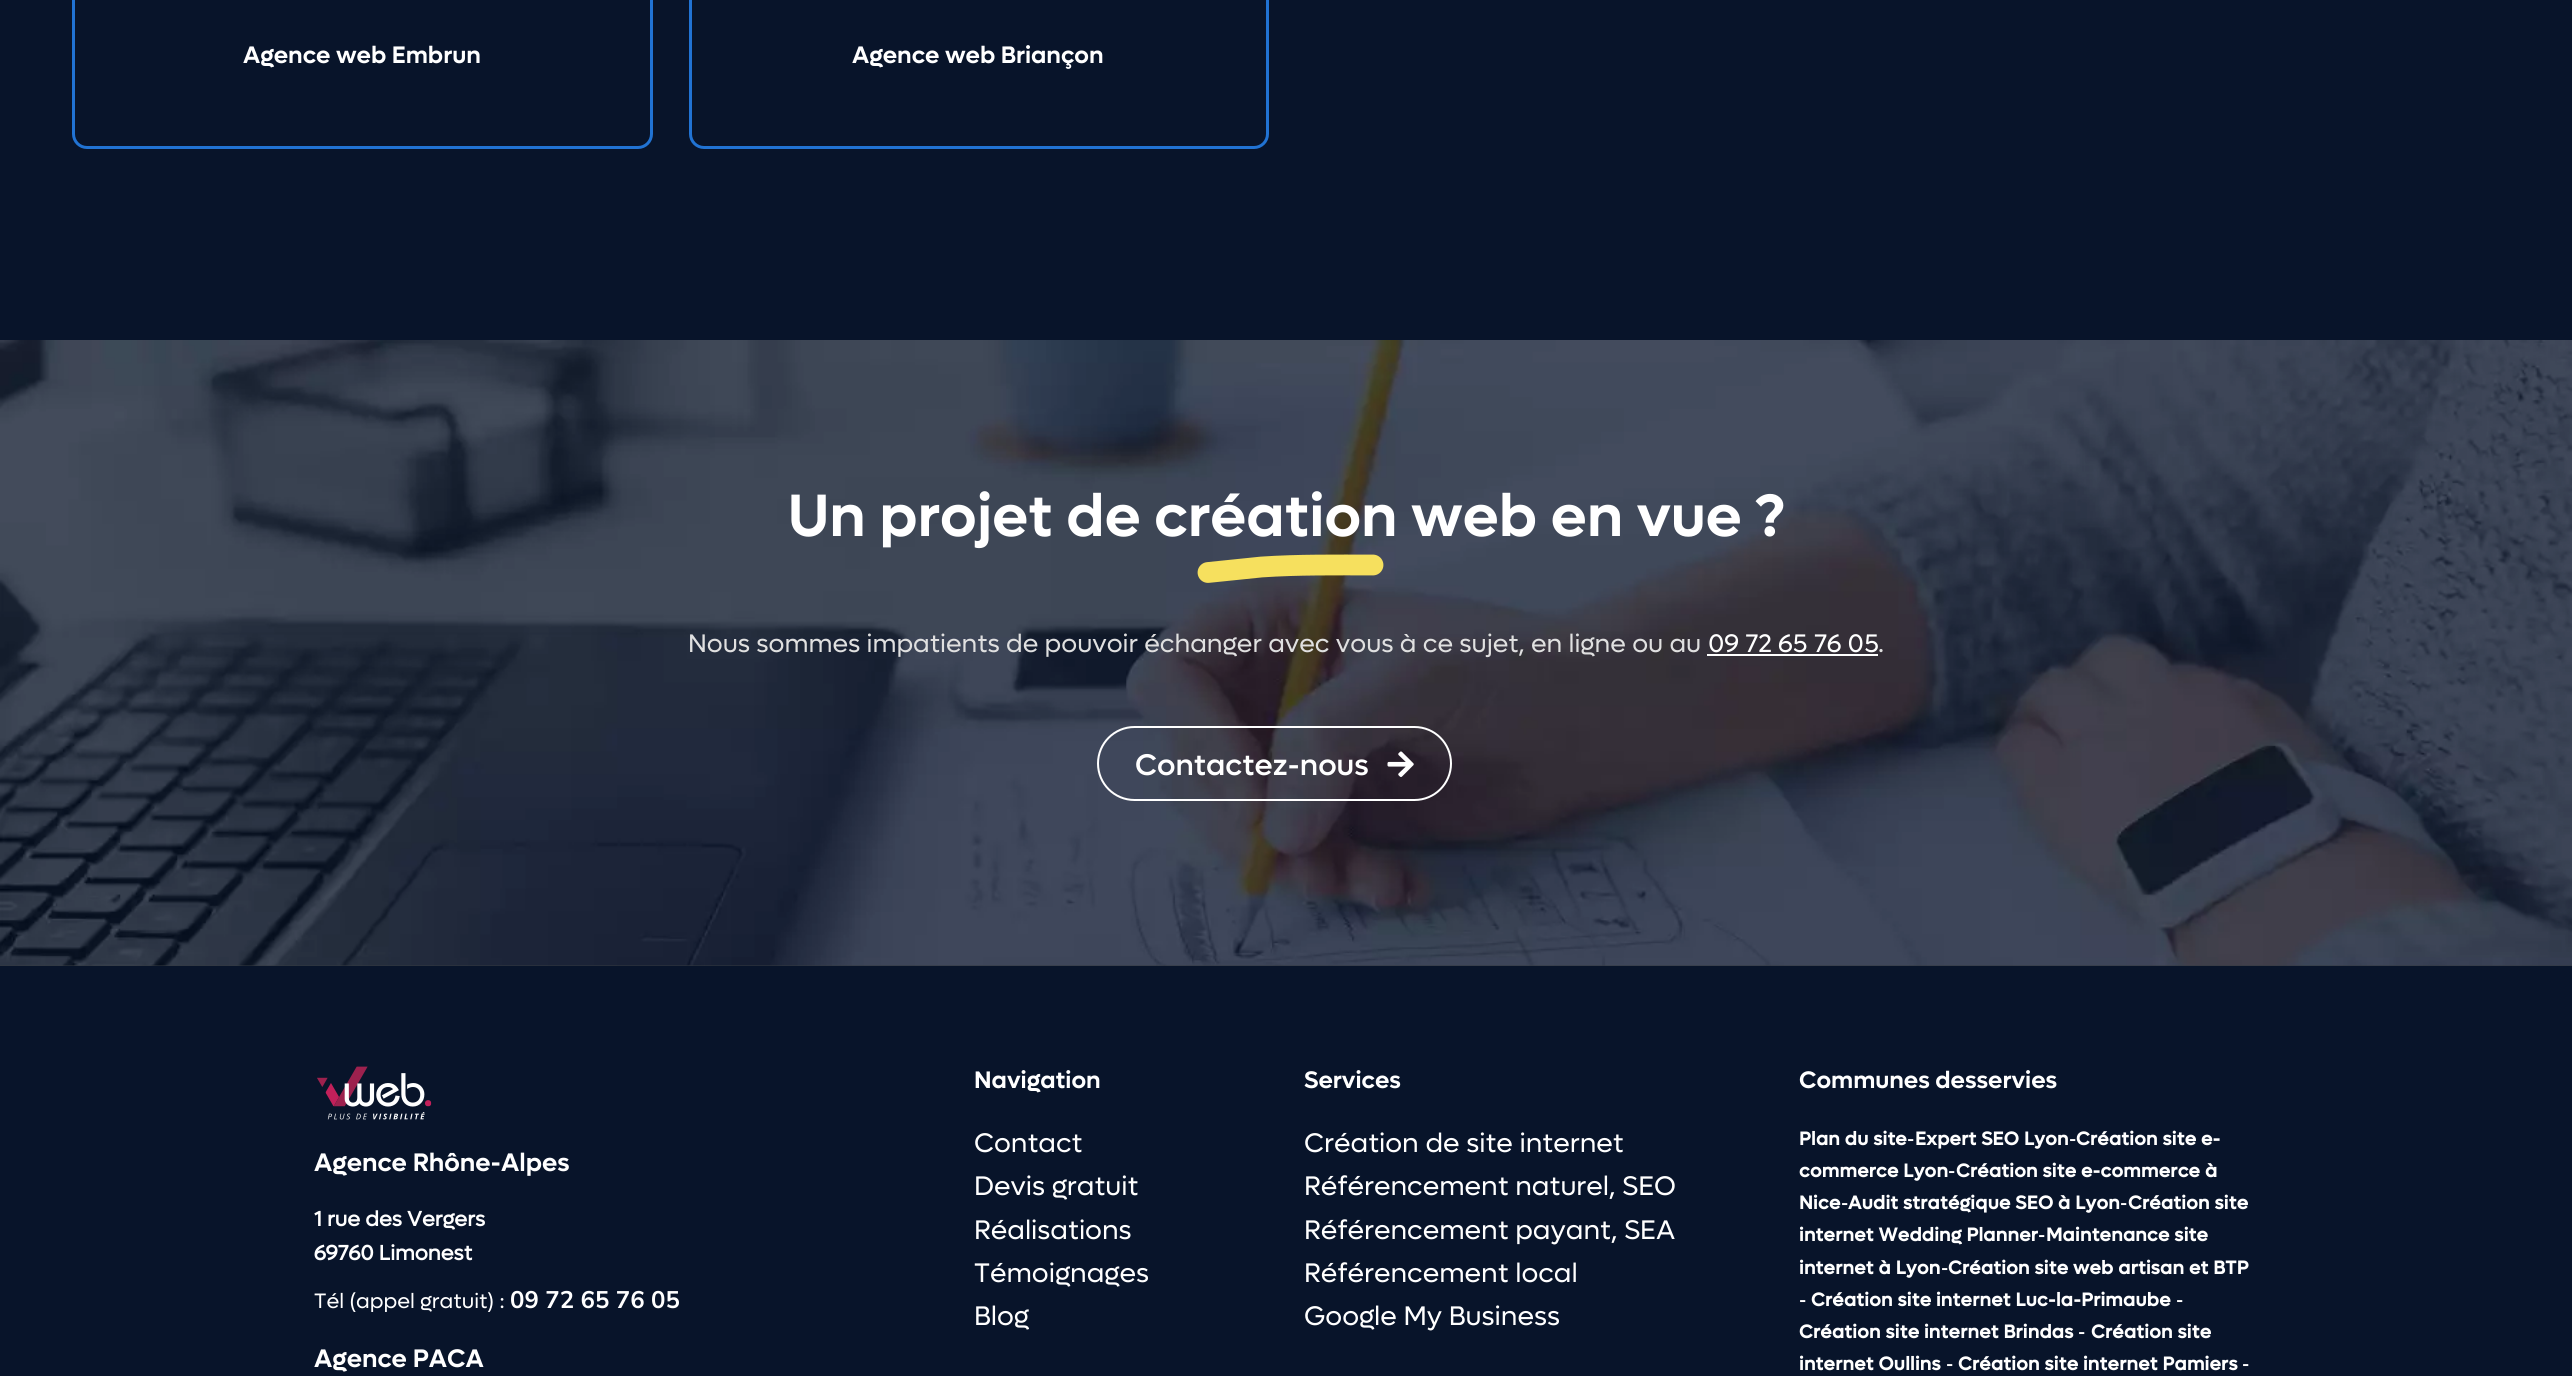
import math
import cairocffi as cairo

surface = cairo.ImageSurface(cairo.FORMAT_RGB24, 2572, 1376)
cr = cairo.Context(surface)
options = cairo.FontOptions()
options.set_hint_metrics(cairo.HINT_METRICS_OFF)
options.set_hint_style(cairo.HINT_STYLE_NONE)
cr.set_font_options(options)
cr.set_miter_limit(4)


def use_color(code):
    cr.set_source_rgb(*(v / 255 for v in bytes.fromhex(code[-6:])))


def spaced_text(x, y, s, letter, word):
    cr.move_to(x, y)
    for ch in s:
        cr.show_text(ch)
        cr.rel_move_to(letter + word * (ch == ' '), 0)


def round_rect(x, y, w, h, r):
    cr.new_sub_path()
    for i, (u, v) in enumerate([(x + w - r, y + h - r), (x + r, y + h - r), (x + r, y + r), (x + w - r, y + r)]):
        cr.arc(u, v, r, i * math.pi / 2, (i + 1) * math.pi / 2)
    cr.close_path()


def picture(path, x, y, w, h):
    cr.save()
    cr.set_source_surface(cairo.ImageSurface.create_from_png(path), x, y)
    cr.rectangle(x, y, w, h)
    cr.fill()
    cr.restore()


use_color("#08142a")
cr.paint()
round_rect(73.5, -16.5, 578, 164, 13.5)
use_color("#2173d3")
cr.set_line_width(3)
cr.stroke()
cr.select_font_face("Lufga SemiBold")
cr.set_font_size(24)
use_color("#ffffff")
cr.move_to(243, 63)
cr.show_text("Agence web Embrun")
round_rect(690.5, -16.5, 577, 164, 13.5)
use_color("#2173d3")
cr.stroke()
use_color("#ffffff")
cr.move_to(852, 63)
cr.show_text("Agence web Briançon")
use_color("#343a40")
cr.rectangle(0, 965, 2572, 1)
cr.fill()
picture("img1.png", 0, 340, 2572, 626)
cr.set_font_size(60)
use_color("#ffffff")
cr.move_to(788, 536)
cr.show_text("Un projet de création web en vue ?")
cr.new_path()
cr.move_to(1208, 572.5)
cr.line_to(1261.5, 567)
cr.curve_to(1298.5, 564.5, 1336, 565, 1373, 565)
use_color("#f6e05e")
cr.set_line_width(20.8)
cr.set_line_cap(cairo.LINE_CAP_ROUND)
cr.set_line_join(cairo.LINE_JOIN_ROUND)
cr.stroke()
cr.select_font_face("Lufga")
cr.set_font_size(25.5)
use_color("#e0e0e0")
cr.move_to(688, 652)
cr.show_text("Nous sommes impatients de pouvoir échanger avec vous à ce sujet, en ligne ou au")
use_color("#ffffff")
cr.move_to(1708, 652)
cr.show_text("09 72 65 76 05")
cr.rectangle(1707, 654, 171, 2)
cr.fill()
use_color("#e0e0e0")
cr.move_to(1878, 652)
cr.show_text(".")
round_rect(1098, 727, 353, 73, 36.5)
use_color("#ffffff")
cr.set_line_width(2)
cr.set_line_cap(cairo.LINE_CAP_BUTT)
cr.set_line_join(cairo.LINE_JOIN_MITER)
cr.stroke()
cr.select_font_face("Lufga Medium")
cr.set_font_size(30)
cr.move_to(1135, 775)
cr.show_text("Contactez-nous")
picture("img2.png", 1387, 751, 27, 26)
picture("img3.png", 317, 1066, 115, 54)
cr.select_font_face("Lufga SemiBold")
cr.set_font_size(25.5)
cr.move_to(314, 1171)
cr.show_text("Agence Rhône-Alpes")
cr.select_font_face("Lufga", cairo.FONT_SLANT_NORMAL, cairo.FONT_WEIGHT_BOLD)
cr.set_font_size(21)
cr.move_to(314, 1226)
cr.show_text("1 rue des Vergers")
cr.move_to(314, 1260)
cr.show_text("69760 Limonest")
cr.select_font_face("Lufga")
cr.move_to(314, 1308)
cr.show_text("Tél (appel gratuit) :")
cr.select_font_face("Nunito Sans", cairo.FONT_SLANT_NORMAL, cairo.FONT_WEIGHT_BOLD)
cr.set_font_size(24)
cr.move_to(510, 1308)
cr.show_text("09 72 65 76 05")
cr.select_font_face("Lufga SemiBold")
cr.set_font_size(25.5)
cr.move_to(314, 1367)
cr.show_text("Agence PACA")
cr.set_font_size(24)
cr.move_to(974, 1088)
cr.show_text("Navigation")
cr.select_font_face("Lufga")
cr.set_font_size(27)
cr.move_to(974, 1152)
cr.show_text("Contact")
cr.move_to(974, 1195)
cr.show_text("Devis gratuit")
cr.move_to(974, 1239)
cr.show_text("Réalisations")
cr.move_to(974, 1282)
cr.show_text("Témoignages")
cr.move_to(974, 1325)
cr.show_text("Blog")
cr.select_font_face("Lufga SemiBold")
cr.set_font_size(24)
cr.move_to(1304, 1088)
cr.show_text("Services")
cr.select_font_face("Lufga")
cr.set_font_size(27)
cr.move_to(1304, 1152)
cr.show_text("Création de site internet")
cr.move_to(1304, 1195)
cr.show_text("Référencement naturel, SEO")
cr.move_to(1304, 1239)
cr.show_text("Référencement payant, SEA")
cr.move_to(1304, 1282)
cr.show_text("Référencement local")
cr.move_to(1304, 1325)
cr.show_text("Google My Business")
cr.select_font_face("Lufga SemiBold")
cr.set_font_size(24)
cr.move_to(1799, 1088)
cr.show_text("Communes desservies")
cr.select_font_face("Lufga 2", cairo.FONT_SLANT_NORMAL, cairo.FONT_WEIGHT_BOLD)
cr.set_font_size(18.75)
spaced_text(1799, 1145, "Plan du site", 0.3, 0)
cr.select_font_face("Lufga Medium")
cr.set_font_size(18)
spaced_text(1907, 1145, "-", 0.3, 0)
cr.select_font_face("Lufga 2", cairo.FONT_SLANT_NORMAL, cairo.FONT_WEIGHT_BOLD)
cr.set_font_size(18.75)
spaced_text(1915, 1145, "Expert SEO Lyon", 0.3, 0)
cr.select_font_face("Lufga Medium")
cr.set_font_size(18)
spaced_text(2069, 1145, "-", 0.3, 0)
cr.select_font_face("Lufga 2", cairo.FONT_SLANT_NORMAL, cairo.FONT_WEIGHT_BOLD)
cr.set_font_size(18.75)
spaced_text(2076, 1145, "Création site e-", 0.3, 0)
spaced_text(1799, 1177, "commerce Lyon", 0.3, 0)
cr.select_font_face("Lufga Medium")
cr.set_font_size(18)
spaced_text(1948, 1177, "-", 0.3, 0)
cr.select_font_face("Lufga 2", cairo.FONT_SLANT_NORMAL, cairo.FONT_WEIGHT_BOLD)
cr.set_font_size(18.75)
spaced_text(1956, 1177, "Création site e-commerce à", 0.3, 0)
spaced_text(1799, 1209, "Nice", 0.3, 0)
cr.select_font_face("Lufga Medium")
cr.set_font_size(18)
spaced_text(1841, 1209, "-", 0.3, 0)
cr.select_font_face("Lufga 2", cairo.FONT_SLANT_NORMAL, cairo.FONT_WEIGHT_BOLD)
cr.set_font_size(18.75)
spaced_text(1848, 1209, "Audit stratégique SEO à Lyon", 0.3, 0)
cr.select_font_face("Lufga Medium")
cr.set_font_size(18)
spaced_text(2120, 1209, "-", 0.3, 0)
cr.select_font_face("Lufga 2", cairo.FONT_SLANT_NORMAL, cairo.FONT_WEIGHT_BOLD)
cr.set_font_size(18.75)
spaced_text(2128, 1209, "Création site", 0.3, 0)
spaced_text(1799, 1241, "internet Wedding Planner", 0.3, 0)
cr.select_font_face("Lufga Medium")
cr.set_font_size(18)
spaced_text(2038, 1241, "-", 0.3, 0)
cr.select_font_face("Lufga 2", cairo.FONT_SLANT_NORMAL, cairo.FONT_WEIGHT_BOLD)
cr.set_font_size(18.75)
spaced_text(2046, 1241, "Maintenance site", 0.3, 0)
spaced_text(1799, 1274, "internet à Lyon", 0.3, 0)
cr.select_font_face("Lufga Medium")
cr.set_font_size(18)
spaced_text(1941, 1274, "-", 0.3, 0)
cr.select_font_face("Lufga 2", cairo.FONT_SLANT_NORMAL, cairo.FONT_WEIGHT_BOLD)
cr.set_font_size(18.75)
spaced_text(1948, 1274, "Création site web artisan et BTP", 0.3, 0)
cr.select_font_face("Lufga Medium")
cr.set_font_size(18)
spaced_text(1799, 1306, "-", 0.3, 0)
cr.select_font_face("Lufga 2", cairo.FONT_SLANT_NORMAL, cairo.FONT_WEIGHT_BOLD)
cr.set_font_size(18.75)
spaced_text(1811, 1306, "Création site internet Luc-la-Primaube", 0.3, 0)
cr.select_font_face("Lufga Medium")
cr.set_font_size(18)
spaced_text(2176, 1306, "-", 0.3, 0)
cr.select_font_face("Lufga 2", cairo.FONT_SLANT_NORMAL, cairo.FONT_WEIGHT_BOLD)
cr.set_font_size(18.75)
spaced_text(1799, 1338, "Création site internet Brindas", 0.3, 0)
cr.select_font_face("Lufga Medium")
cr.set_font_size(18)
spaced_text(2078, 1338, "-", 0.3, 0)
cr.select_font_face("Lufga 2", cairo.FONT_SLANT_NORMAL, cairo.FONT_WEIGHT_BOLD)
cr.set_font_size(18.75)
spaced_text(2091, 1338, "Création site", 0.3, 0)
spaced_text(1799, 1370, "internet Oullins", 0.3, 0)
cr.select_font_face("Lufga Medium")
cr.set_font_size(18)
spaced_text(1946, 1370, "-", 0.3, 0)
cr.select_font_face("Lufga 2", cairo.FONT_SLANT_NORMAL, cairo.FONT_WEIGHT_BOLD)
cr.set_font_size(18.75)
spaced_text(1958, 1370, "Création site internet Pamiers", 0.3, 0)
cr.select_font_face("Lufga Medium")
cr.set_font_size(18)
spaced_text(2242, 1370, "-", 0.3, 0)
surface.write_to_png("result.png")
